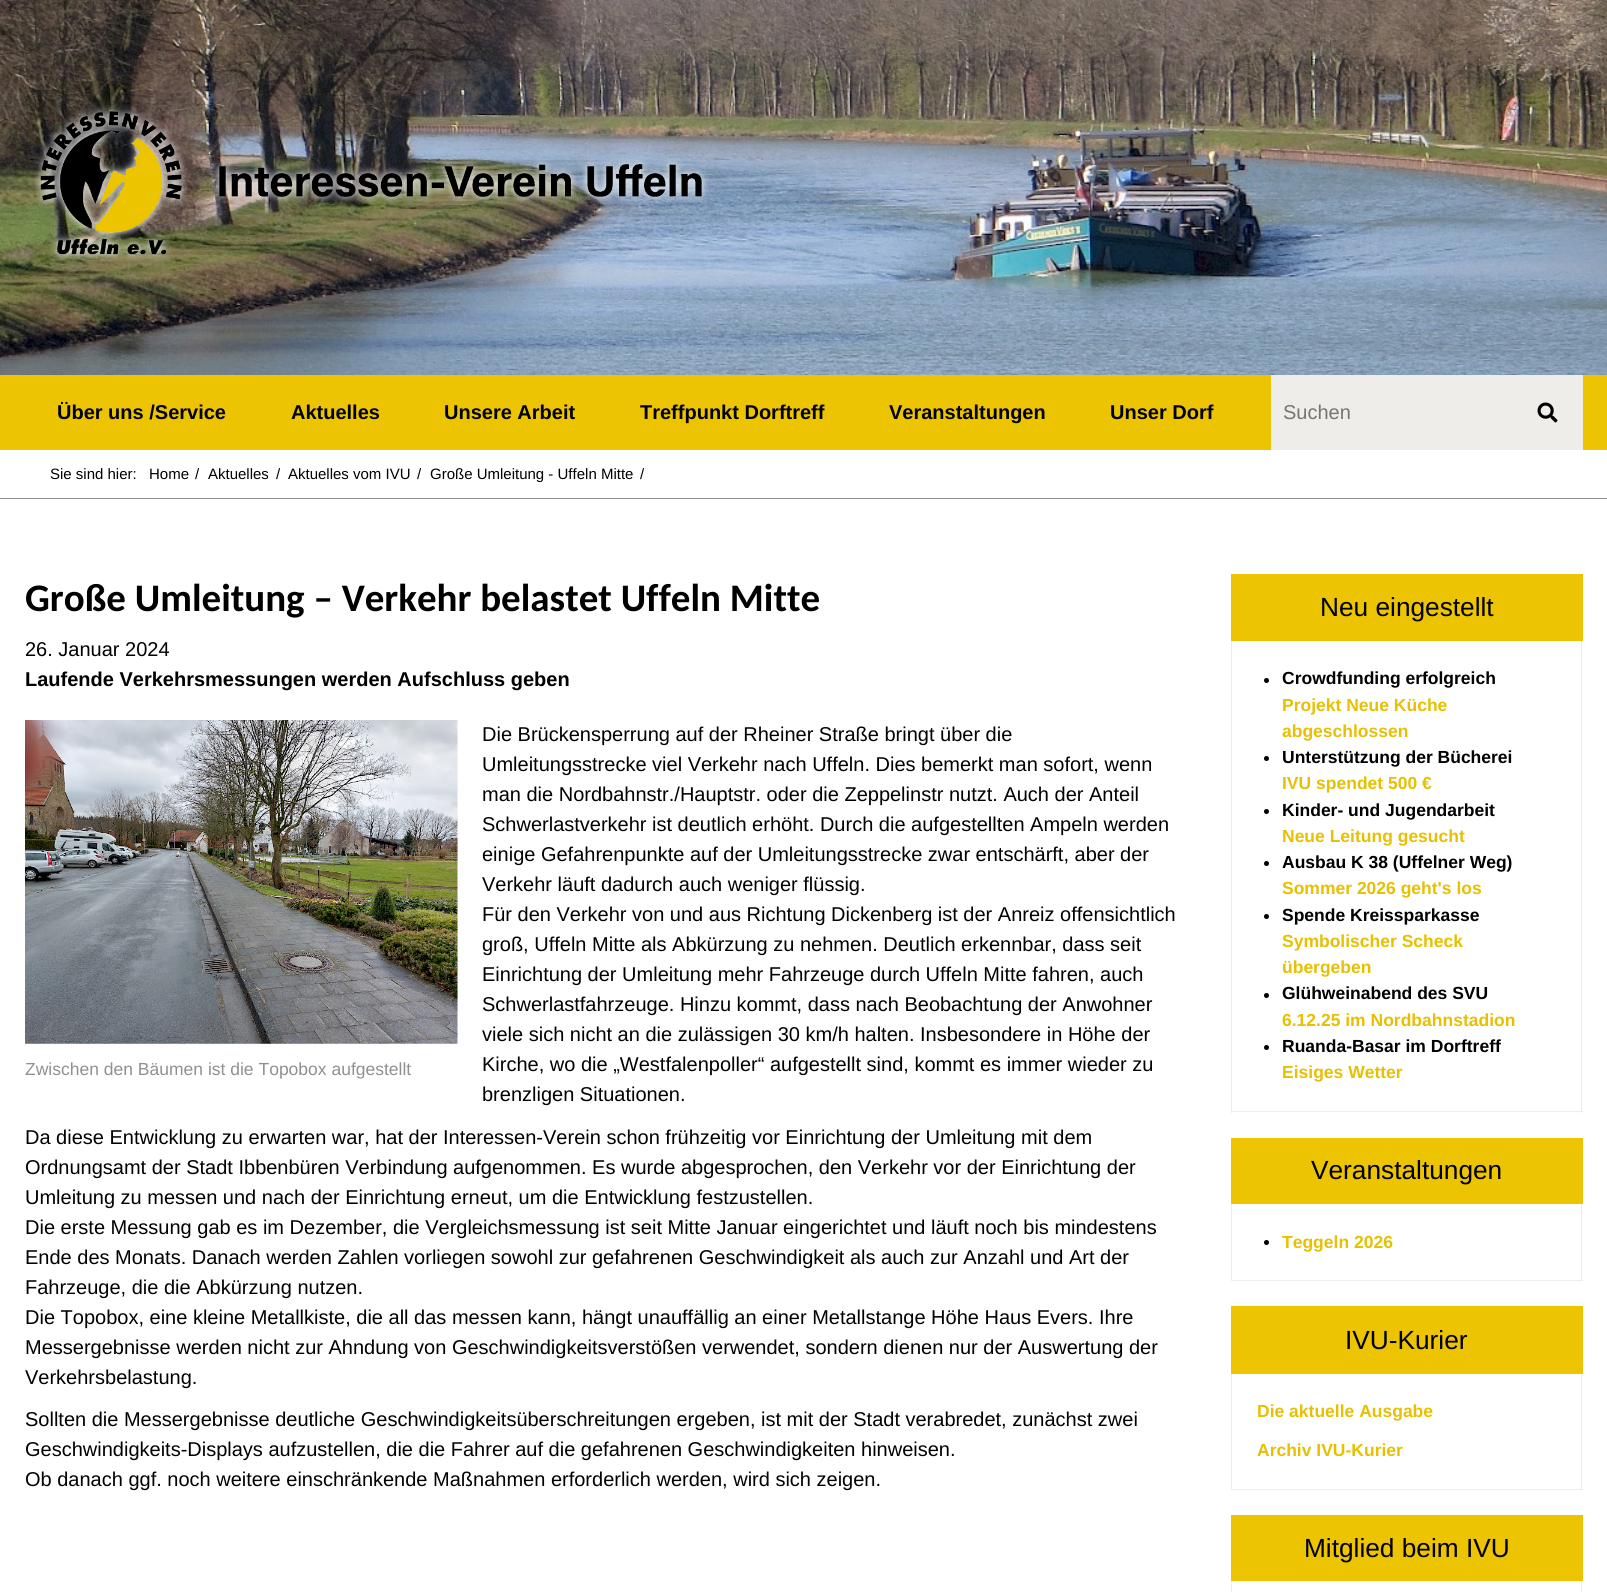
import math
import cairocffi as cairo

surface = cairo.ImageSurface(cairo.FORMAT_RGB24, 1607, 1592)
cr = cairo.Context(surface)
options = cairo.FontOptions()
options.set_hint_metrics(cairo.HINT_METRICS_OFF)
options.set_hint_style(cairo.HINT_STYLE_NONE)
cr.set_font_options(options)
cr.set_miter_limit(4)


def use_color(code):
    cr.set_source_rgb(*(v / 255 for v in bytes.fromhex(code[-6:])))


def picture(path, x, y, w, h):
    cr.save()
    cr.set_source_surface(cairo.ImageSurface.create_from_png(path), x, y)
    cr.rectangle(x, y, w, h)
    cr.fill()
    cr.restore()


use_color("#ffffff")
cr.paint()
picture("img1.png", 0, 0, 1607, 375)
picture("img2.png", 34, 105, 675, 156)
use_color("#ecc401")
cr.rectangle(0, 375, 1607, 75)
cr.fill()
cr.select_font_face("Liberation Sans", cairo.FONT_SLANT_NORMAL, cairo.FONT_WEIGHT_BOLD)
cr.set_font_size(20)
use_color("#000000")
cr.move_to(57, 419)
cr.show_text("Über uns /Service")
cr.move_to(291, 419)
cr.show_text("Aktuelles")
cr.move_to(444, 419)
cr.show_text("Unsere Arbeit")
cr.move_to(640, 419)
cr.show_text("Treffpunkt Dorftreff")
cr.move_to(889, 419)
cr.show_text("Veranstaltungen")
cr.move_to(1110, 419)
cr.show_text("Unser Dorf")
use_color("#efede9")
cr.rectangle(1271, 375, 312, 75)
cr.fill()
cr.select_font_face("Liberation Sans")
use_color("#757575")
cr.move_to(1283, 419)
cr.show_text("Suchen")
picture("img3.png", 1537, 402, 21, 21)
use_color("#909090")
cr.rectangle(0, 498, 1607, 1)
cr.fill()
cr.set_font_size(15)
use_color("#000000")
cr.move_to(50, 479)
cr.show_text("Sie sind hier:")
cr.move_to(149, 479)
cr.show_text("Home")
cr.move_to(195, 479)
cr.show_text("/")
cr.move_to(208, 479)
cr.show_text("Aktuelles")
cr.move_to(276, 479)
cr.show_text("/")
cr.move_to(288, 479)
cr.show_text("Aktuelles vom IVU")
cr.move_to(417, 479)
cr.show_text("/")
cr.move_to(430, 479)
cr.show_text("Große Umleitung - Uffeln Mitte")
cr.move_to(640, 479)
cr.show_text("/")
cr.select_font_face("Carlito", cairo.FONT_SLANT_NORMAL, cairo.FONT_WEIGHT_BOLD)
cr.set_font_size(39)
cr.move_to(25, 611)
cr.show_text("Große Umleitung – Verkehr belastet Uffeln Mitte")
cr.select_font_face("Liberation Sans")
cr.set_font_size(20)
cr.move_to(25, 656)
cr.show_text("26. Januar 2024")
cr.select_font_face("Liberation Sans", cairo.FONT_SLANT_NORMAL, cairo.FONT_WEIGHT_BOLD)
cr.move_to(25, 686)
cr.show_text("Laufende Verkehrsmessungen werden Aufschluss geben")
cr.select_font_face("Liberation Sans")
cr.move_to(482, 741)
cr.show_text("Die Brückensperrung auf der Rheiner Straße bringt über die")
cr.move_to(482, 771)
cr.show_text("Umleitungsstrecke viel Verkehr nach Uffeln. Dies bemerkt man sofort, wenn")
cr.move_to(482, 801)
cr.show_text("man die Nordbahnstr./Hauptstr. oder die Zeppelinstr nutzt. Auch der Anteil")
cr.move_to(482, 831)
cr.show_text("Schwerlastverkehr ist deutlich erhöht. Durch die aufgestellten Ampeln werden")
cr.move_to(482, 861)
cr.show_text("einige Gefahrenpunkte auf der Umleitungsstrecke zwar entschärft, aber der")
cr.move_to(482, 891)
cr.show_text("Verkehr läuft dadurch auch weniger flüssig.")
cr.move_to(482, 921)
cr.show_text("Für den Verkehr von und aus Richtung Dickenberg ist der Anreiz offensichtlich")
cr.move_to(482, 951)
cr.show_text("groß, Uffeln Mitte als Abkürzung zu nehmen. Deutlich erkennbar, dass seit")
cr.move_to(482, 981)
cr.show_text("Einrichtung der Umleitung mehr Fahrzeuge durch Uffeln Mitte fahren, auch")
cr.move_to(482, 1011)
cr.show_text("Schwerlastfahrzeuge. Hinzu kommt, dass nach Beobachtung der Anwohner")
cr.move_to(482, 1041)
cr.show_text("viele sich nicht an die zulässigen 30 km/h halten. Insbesondere in Höhe der")
cr.move_to(482, 1071)
cr.show_text("Kirche, wo die „Westfalenpoller“ aufgestellt sind, kommt es immer wieder zu")
cr.move_to(482, 1101)
cr.show_text("brenzligen Situationen.")
cr.move_to(25, 1144)
cr.show_text("Da diese Entwicklung zu erwarten war, hat der Interessen-Verein schon frühzeitig vor Einrichtung der Umleitung mit dem")
cr.move_to(25, 1174)
cr.show_text("Ordnungsamt der Stadt Ibbenbüren Verbindung aufgenommen. Es wurde abgesprochen, den Verkehr vor der Einrichtung der")
cr.move_to(25, 1204)
cr.show_text("Umleitung zu messen und nach der Einrichtung erneut, um die Entwicklung festzustellen.")
cr.move_to(25, 1234)
cr.show_text("Die erste Messung gab es im Dezember, die Vergleichsmessung ist seit Mitte Januar eingerichtet und läuft noch bis mindestens")
cr.move_to(25, 1264)
cr.show_text("Ende des Monats. Danach werden Zahlen vorliegen sowohl zur gefahrenen Geschwindigkeit als auch zur Anzahl und Art der")
cr.move_to(25, 1294)
cr.show_text("Fahrzeuge, die die Abkürzung nutzen.")
cr.move_to(25, 1324)
cr.show_text("Die Topobox, eine kleine Metallkiste, die all das messen kann, hängt unauffällig an einer Metallstange Höhe Haus Evers. Ihre")
cr.move_to(25, 1354)
cr.show_text("Messergebnisse werden nicht zur Ahndung von Geschwindigkeitsverstößen verwendet, sondern dienen nur der Auswertung der")
cr.move_to(25, 1384)
cr.show_text("Verkehrsbelastung.")
cr.move_to(25, 1426)
cr.show_text("Sollten die Messergebnisse deutliche Geschwindigkeitsüberschreitungen ergeben, ist mit der Stadt verabredet, zunächst zwei")
cr.move_to(25, 1456)
cr.show_text("Geschwindigkeits-Displays aufzustellen, die die Fahrer auf die gefahrenen Geschwindigkeiten hinweisen.")
cr.move_to(25, 1486)
cr.show_text("Ob danach ggf. noch weitere einschränkende Maßnahmen erforderlich werden, wird sich zeigen.")
picture("img4.png", 25, 720, 433, 324)
cr.set_font_size(17.5)
use_color("#909090")
cr.move_to(25, 1075)
cr.show_text("Zwischen den Bäumen ist die Topobox aufgestellt")
use_color("#ecc401")
cr.rectangle(1231, 574, 352, 67)
cr.fill()
cr.set_font_size(26.25)
use_color("#000000")
cr.move_to(1320, 616)
cr.show_text("Neu eingestellt")
use_color("#efede9")
cr.rectangle(1581, 641, 1, 472)
cr.fill()
cr.rectangle(1231, 1111, 352, 1)
cr.fill()
cr.rectangle(1231, 641, 1, 472)
cr.fill()
use_color("#000000")
cr.arc(1266.5, 680.5, 2.5, 0, 2 * math.pi)
cr.fill()
cr.select_font_face("Liberation Sans", cairo.FONT_SLANT_NORMAL, cairo.FONT_WEIGHT_BOLD)
cr.set_font_size(17.5)
cr.move_to(1282, 684)
cr.show_text("Crowdfunding erfolgreich")
use_color("#e7c001")
cr.move_to(1282, 711)
cr.show_text("Projekt Neue Küche")
cr.move_to(1282, 737)
cr.show_text("abgeschlossen")
use_color("#000000")
cr.new_path()
cr.arc(1266.5, 758.5, 2.5, 0, 2 * math.pi)
cr.fill()
cr.move_to(1282, 763)
cr.show_text("Unterstützung der Bücherei")
use_color("#e7c001")
cr.move_to(1282, 789)
cr.show_text("IVU spendet 500 €")
use_color("#000000")
cr.new_path()
cr.arc(1266.5, 811.5, 2.5, 0, 2 * math.pi)
cr.fill()
cr.move_to(1282, 816)
cr.show_text("Kinder- und Jugendarbeit")
use_color("#e7c001")
cr.move_to(1282, 842)
cr.show_text("Neue Leitung gesucht")
use_color("#000000")
cr.new_path()
cr.arc(1266.5, 863.5, 2.5, 0, 2 * math.pi)
cr.fill()
cr.move_to(1282, 868)
cr.show_text("Ausbau K 38 (Uffelner Weg)")
use_color("#e7c001")
cr.move_to(1282, 894)
cr.show_text("Sommer 2026 geht's los")
use_color("#000000")
cr.new_path()
cr.arc(1266.5, 916.5, 2.5, 0, 2 * math.pi)
cr.fill()
cr.move_to(1282, 921)
cr.show_text("Spende Kreissparkasse")
use_color("#e7c001")
cr.move_to(1282, 947)
cr.show_text("Symbolischer Scheck")
cr.move_to(1282, 973)
cr.show_text("übergeben")
use_color("#000000")
cr.new_path()
cr.arc(1266.5, 995.5, 2.5, 0, 2 * math.pi)
cr.fill()
cr.move_to(1282, 999)
cr.show_text("Glühweinabend des SVU")
use_color("#e7c001")
cr.move_to(1282, 1026)
cr.show_text("6.12.25 im Nordbahnstadion")
use_color("#000000")
cr.new_path()
cr.arc(1266.5, 1047.5, 2.5, 0, 2 * math.pi)
cr.fill()
cr.move_to(1282, 1052)
cr.show_text("Ruanda-Basar im Dorftreff")
use_color("#e7c001")
cr.move_to(1282, 1078)
cr.show_text("Eisiges Wetter")
use_color("#ecc401")
cr.rectangle(1231, 1138, 352, 66)
cr.fill()
cr.select_font_face("Liberation Sans")
cr.set_font_size(26.25)
use_color("#000000")
cr.move_to(1311, 1179)
cr.show_text("Veranstaltungen")
use_color("#efede9")
cr.rectangle(1581, 1204, 1, 77)
cr.fill()
cr.rectangle(1231, 1280, 352, 1)
cr.fill()
cr.rectangle(1231, 1204, 1, 77)
cr.fill()
use_color("#000000")
cr.arc(1266.5, 1242.5, 2.5, 0, 2 * math.pi)
cr.fill()
cr.select_font_face("Liberation Sans", cairo.FONT_SLANT_NORMAL, cairo.FONT_WEIGHT_BOLD)
cr.set_font_size(17.5)
use_color("#e7c001")
cr.move_to(1282, 1248)
cr.show_text("Teggeln 2026")
use_color("#ecc401")
cr.rectangle(1231, 1306, 352, 68)
cr.fill()
cr.select_font_face("Liberation Sans")
cr.set_font_size(26.25)
use_color("#000000")
cr.move_to(1345, 1349)
cr.show_text("IVU-Kurier")
use_color("#efede9")
cr.rectangle(1581, 1374, 1, 116)
cr.fill()
cr.rectangle(1231, 1489, 352, 1)
cr.fill()
cr.rectangle(1231, 1374, 1, 116)
cr.fill()
cr.select_font_face("Liberation Sans", cairo.FONT_SLANT_NORMAL, cairo.FONT_WEIGHT_BOLD)
cr.set_font_size(17.5)
use_color("#e7c001")
cr.move_to(1257, 1417)
cr.show_text("Die aktuelle Ausgabe")
cr.move_to(1257, 1456)
cr.show_text("Archiv IVU-Kurier")
use_color("#ecc401")
cr.rectangle(1231, 1515, 352, 66)
cr.fill()
cr.select_font_face("Liberation Sans")
cr.set_font_size(26.25)
use_color("#000000")
cr.move_to(1304, 1557)
cr.show_text("Mitglied beim IVU")
use_color("#efede9")
cr.rectangle(1581, 1581, 1, 11)
cr.fill()
cr.rectangle(1231, 1581, 1, 11)
cr.fill()
surface.write_to_png("result.png")
